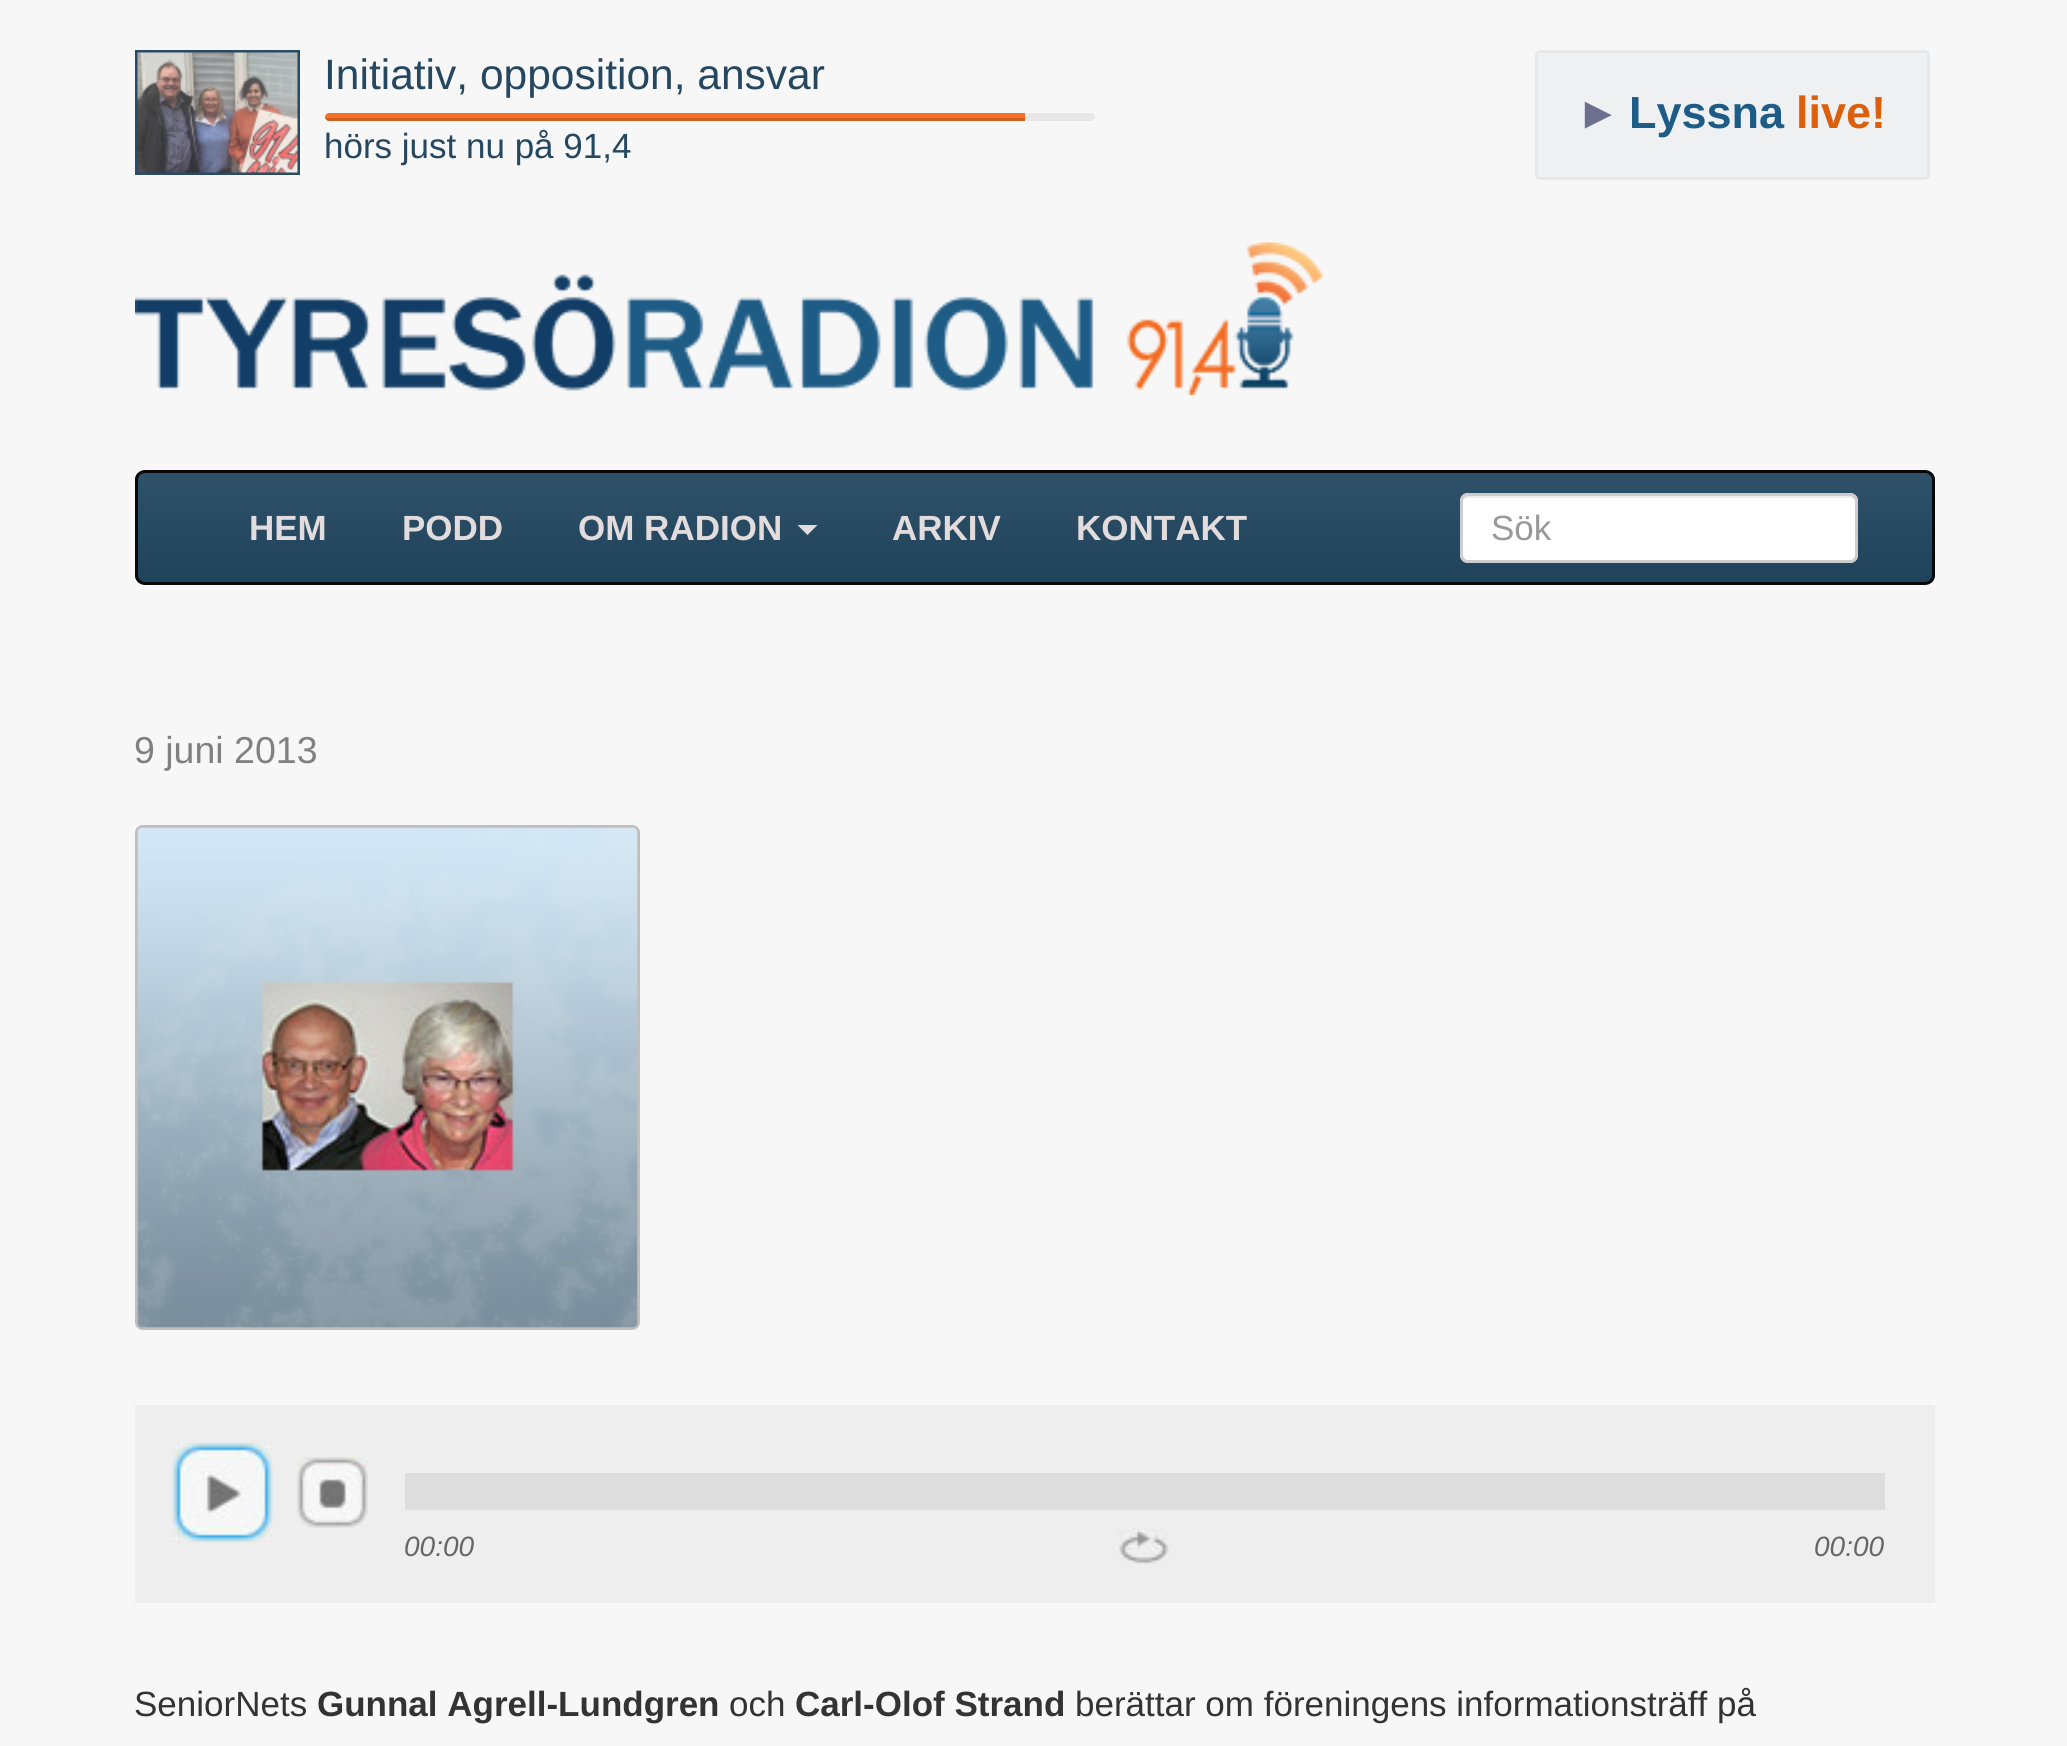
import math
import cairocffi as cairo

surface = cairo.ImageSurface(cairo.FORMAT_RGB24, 2067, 1746)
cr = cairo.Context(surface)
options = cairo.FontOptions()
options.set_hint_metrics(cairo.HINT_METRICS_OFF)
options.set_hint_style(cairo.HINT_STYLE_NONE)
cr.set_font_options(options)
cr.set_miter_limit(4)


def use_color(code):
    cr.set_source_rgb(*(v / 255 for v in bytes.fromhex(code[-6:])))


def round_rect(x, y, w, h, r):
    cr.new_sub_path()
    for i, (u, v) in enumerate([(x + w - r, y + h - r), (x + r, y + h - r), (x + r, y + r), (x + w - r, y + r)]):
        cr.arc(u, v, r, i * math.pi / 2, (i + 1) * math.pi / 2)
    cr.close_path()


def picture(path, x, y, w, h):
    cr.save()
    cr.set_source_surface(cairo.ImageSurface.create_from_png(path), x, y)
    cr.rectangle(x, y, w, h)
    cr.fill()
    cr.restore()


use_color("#f7f7f7")
cr.paint()
cr.rectangle(136.5, 51.5, 162, 122)
use_color("#294b64")
cr.set_line_width(3)
cr.stroke()
picture("img1.png", 137, 52, 161, 121)
cr.select_font_face("Liberation Sans")
cr.set_font_size(42.5)
use_color("#254760")
cr.move_to(324, 89)
cr.show_text("Initiativ, opposition, ansvar")
use_color("#e8e7e7")
round_rect(325, 113, 770, 8, 4)
cr.fill()
use_color("#f56f26")
cr.new_path()
cr.move_to(329, 113)
cr.line_to(1025, 113)
cr.line_to(1025, 121)
cr.line_to(329, 121)
cr.curve_to(327, 121, 325, 119, 325, 117)
cr.curve_to(325, 115, 327, 113, 329, 113)
cr.close_path()
cr.fill()
cr.save()
round_rect(325, 113, 770, 8, 4)
cr.clip()
cr.set_source_rgba(0, 0, 0, 0.15)
cr.rectangle(325, 118, 700, 3)
cr.fill()
cr.restore()
cr.set_font_size(35)
use_color("#254760")
cr.move_to(324, 158)
cr.show_text("hörs just nu på 91,4")
use_color("#eff0f1")
round_rect(1536.5, 51.5, 392, 127, 3.5)
cr.fill_preserve()
use_color("#e8e8e8")
cr.stroke()
cr.select_font_face("Liberation Sans", cairo.FONT_SLANT_NORMAL, cairo.FONT_WEIGHT_BOLD)
cr.set_font_size(45)
use_color("#6d6f8f")
cr.move_to(1576, 128)
cr.show_text("►")
use_color("#1d5c86")
cr.move_to(1629, 128)
cr.show_text("Lyssna")
use_color("#db5f0c")
cr.move_to(1796, 128)
cr.show_text("live!")
picture("img2.png", 135, 242, 1188, 153)
cr.save()
round_rect(135, 470, 1800, 115, 10)
cr.clip()
gradient = cairo.LinearGradient(1035, 472, 1035, 583)
gradient.add_color_stop_rgba(0, 0.184, 0.318, 0.416, 1)
gradient.add_color_stop_rgba(1, 0.125, 0.259, 0.357, 1)
cr.set_source(gradient)
cr.rectangle(135, 473, 1800, 110)
cr.fill()
cr.restore()
round_rect(136.5, 471.5, 1797, 112, 8.5)
use_color("#080808")
cr.stroke()
cr.set_font_size(35)
use_color("#e2dcdc")
cr.move_to(249, 540)
cr.show_text("HEM")
cr.move_to(402, 540)
cr.show_text("PODD")
cr.move_to(578, 540)
cr.show_text("OM RADION")
cr.new_path()
cr.move_to(797.5, 525)
cr.line_to(817.5, 525)
cr.line_to(807.5, 535)
cr.close_path()
cr.fill()
cr.move_to(892, 540)
cr.show_text("ARKIV")
cr.move_to(1076, 540)
cr.show_text("KONTAKT")
use_color("#ffffff")
round_rect(1460, 493, 398, 70, 8)
cr.fill()
use_color("#ececec")
cr.new_path()
cr.move_to(1468, 498)
cr.line_to(1850, 498)
cr.curve_to(1853, 498, 1855, 500, 1855, 502)
cr.line_to(1855, 500)
cr.curve_to(1855, 497, 1853, 495, 1850, 495)
cr.line_to(1468, 495)
cr.curve_to(1465, 495, 1463, 497, 1463, 500)
cr.curve_to(1464, 499, 1466, 498, 1468, 498)
cr.close_path()
cr.fill()
round_rect(1461.5, 494.5, 395, 67, 6.5)
use_color("#cccccc")
cr.stroke()
cr.select_font_face("Liberation Sans")
use_color("#999999")
cr.move_to(1491, 540)
cr.show_text("Sök")
cr.set_font_size(37.5)
use_color("#808080")
cr.move_to(134, 763)
cr.show_text("9 juni 2013")
round_rect(136.5, 826.5, 502, 502, 6.5)
use_color("#c1bdbd")
cr.stroke()
picture("img3.png", 137, 827, 501, 501)
use_color("#eeeeee")
cr.rectangle(135, 1405, 1800, 198)
cr.fill()
picture("img4.png", 172, 1442, 101, 101)
picture("img5.png", 297, 1457, 71, 71)
use_color("#dddddd")
cr.rectangle(405, 1473, 1480, 37)
cr.fill()
cr.select_font_face("Liberation Sans", cairo.FONT_SLANT_ITALIC)
cr.set_font_size(28)
use_color("#666666")
cr.move_to(404, 1556)
cr.show_text("00:00")
picture("img6.png", 1116, 1527, 56, 38)
cr.move_to(1814, 1556)
cr.show_text("00:00")
cr.select_font_face("Liberation Sans")
cr.set_font_size(35)
use_color("#333333")
cr.move_to(134, 1716)
cr.show_text("SeniorNets")
cr.select_font_face("Liberation Sans", cairo.FONT_SLANT_NORMAL, cairo.FONT_WEIGHT_BOLD)
cr.move_to(317, 1716)
cr.show_text("Gunnal Agrell-Lundgren")
cr.select_font_face("Liberation Sans")
cr.move_to(729, 1716)
cr.show_text("och")
cr.select_font_face("Liberation Sans", cairo.FONT_SLANT_NORMAL, cairo.FONT_WEIGHT_BOLD)
cr.move_to(795, 1716)
cr.show_text("Carl-Olof Strand")
cr.select_font_face("Liberation Sans")
cr.move_to(1075, 1716)
cr.show_text("berättar om föreningens informationsträff på")
surface.write_to_png("result.png")
